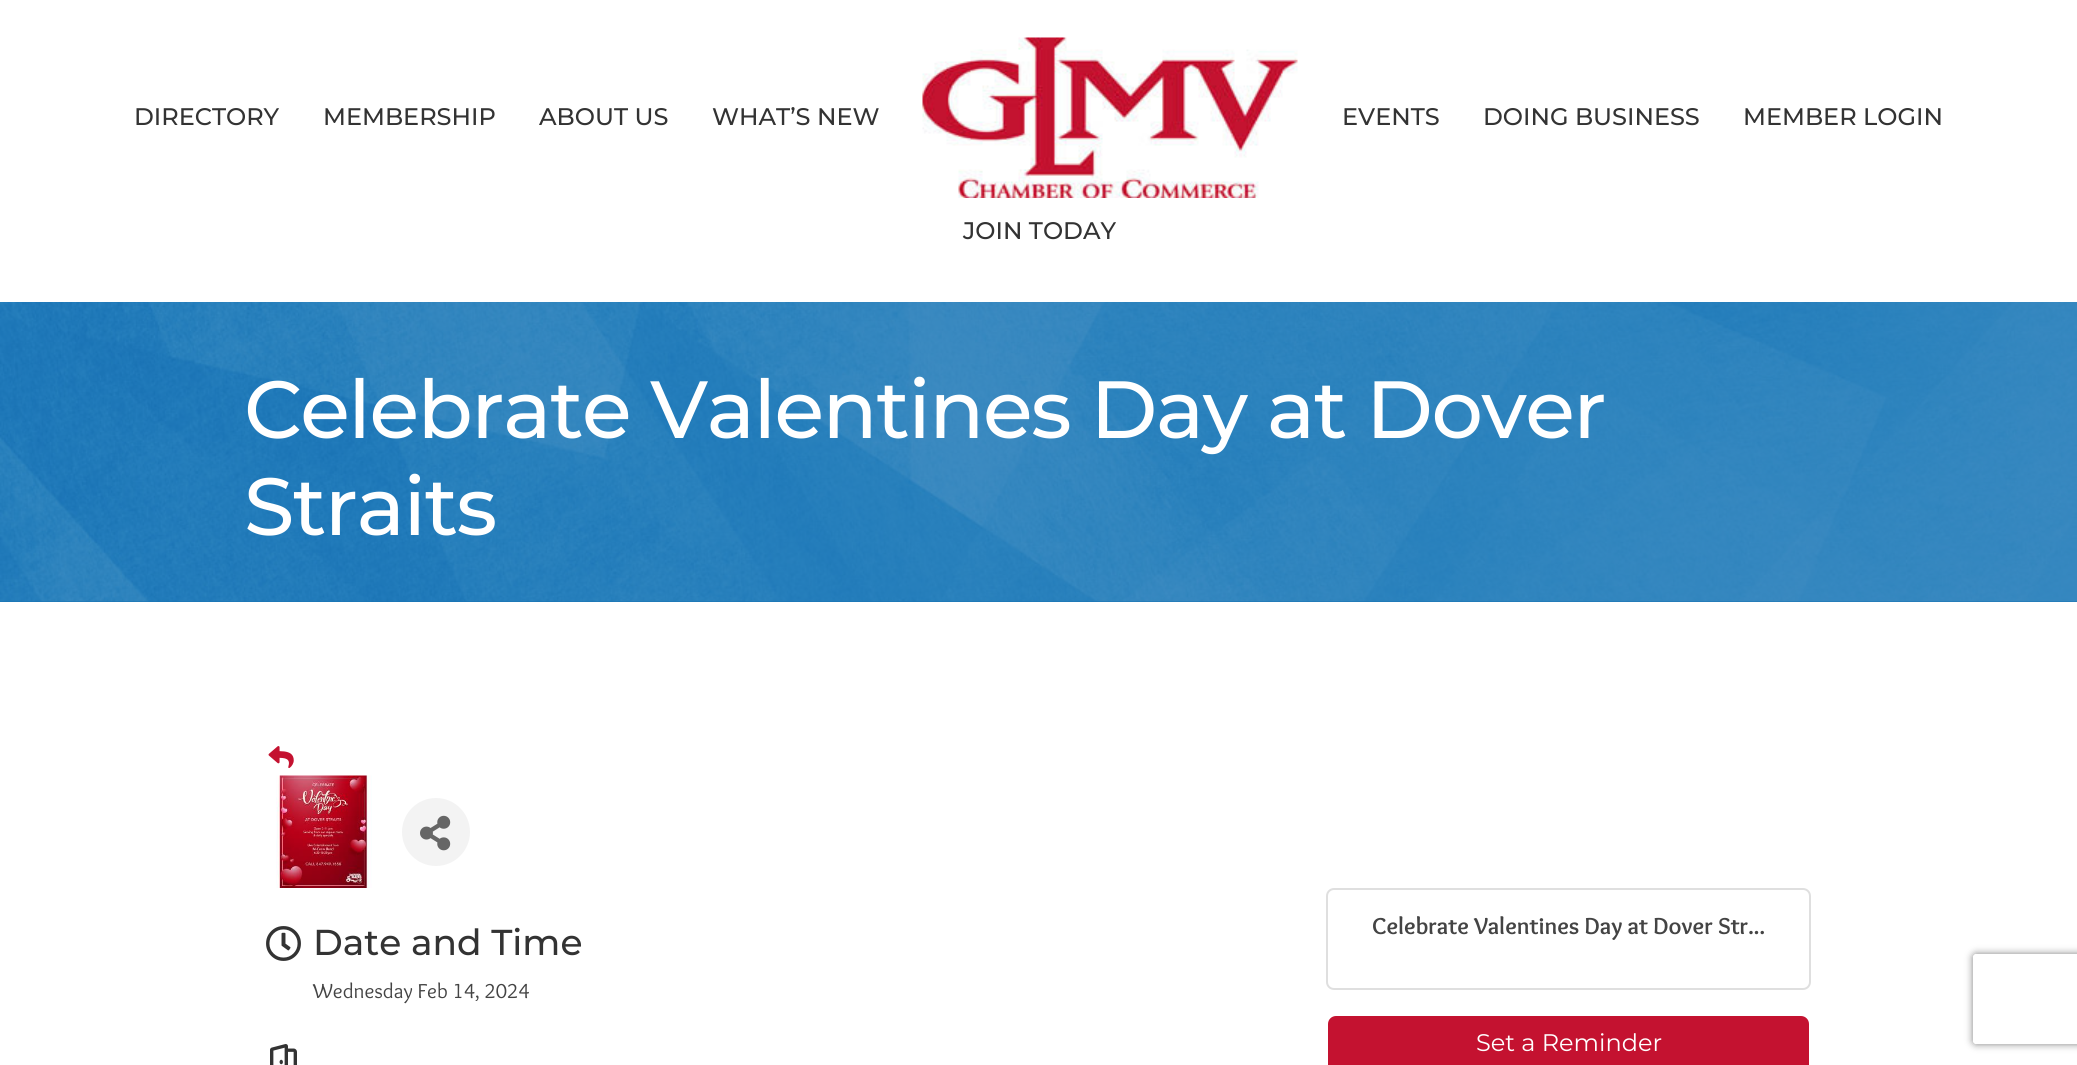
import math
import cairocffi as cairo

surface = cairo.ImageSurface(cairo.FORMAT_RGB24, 2077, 1065)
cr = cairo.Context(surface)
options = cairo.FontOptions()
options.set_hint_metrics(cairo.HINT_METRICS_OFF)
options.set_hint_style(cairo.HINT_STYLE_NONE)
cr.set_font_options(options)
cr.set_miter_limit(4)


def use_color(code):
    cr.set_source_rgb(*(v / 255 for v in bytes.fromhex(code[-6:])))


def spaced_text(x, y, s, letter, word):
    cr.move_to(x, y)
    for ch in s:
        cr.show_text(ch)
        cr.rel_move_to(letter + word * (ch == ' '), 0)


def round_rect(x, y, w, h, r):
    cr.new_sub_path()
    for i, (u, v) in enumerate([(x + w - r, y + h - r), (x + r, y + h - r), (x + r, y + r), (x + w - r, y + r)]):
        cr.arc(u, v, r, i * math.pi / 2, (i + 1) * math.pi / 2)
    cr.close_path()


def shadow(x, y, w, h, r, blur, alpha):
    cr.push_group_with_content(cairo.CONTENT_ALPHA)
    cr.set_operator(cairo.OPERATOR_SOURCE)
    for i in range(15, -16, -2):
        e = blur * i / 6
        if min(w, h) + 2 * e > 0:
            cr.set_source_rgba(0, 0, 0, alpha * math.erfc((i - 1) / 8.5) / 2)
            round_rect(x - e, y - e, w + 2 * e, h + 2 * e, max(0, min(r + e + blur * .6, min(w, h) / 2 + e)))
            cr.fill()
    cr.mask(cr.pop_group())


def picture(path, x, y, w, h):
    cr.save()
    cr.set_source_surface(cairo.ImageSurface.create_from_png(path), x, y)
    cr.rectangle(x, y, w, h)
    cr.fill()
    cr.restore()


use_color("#ffffff")
cr.paint()
cr.select_font_face("Montserrat Medium")
cr.set_font_size(24)
use_color("#333333")
cr.move_to(134, 125)
cr.show_text("DIRECTORY")
cr.move_to(323, 125)
cr.show_text("MEMBERSHIP")
cr.move_to(539, 125)
cr.show_text("ABOUT US")
cr.move_to(712, 125)
cr.show_text("WHAT’S NEW")
picture("img1.png", 922, 37, 376, 161)
cr.move_to(1342, 125)
cr.show_text("EVENTS")
cr.move_to(1483, 125)
cr.show_text("DOING BUSINESS")
cr.move_to(1743, 125)
cr.show_text("MEMBER LOGIN")
cr.move_to(963, 239)
cr.show_text("JOIN TODAY")
use_color("#1772b3")
cr.rectangle(0, 601, 2077, 1)
cr.fill()
picture("img2.png", 0, 302, 2077, 300)
cr.set_font_size(81)
use_color("#ffffff")
spaced_text(244, 438, "Celebrate Valentines Day at Dover", -1.5, 0)
spaced_text(244, 535, "Straits", -1.5, 0)
picture("img3.png", 268, 746, 26, 22)
picture("img4.png", 276, 775, 96, 113)
use_color("#f3f3f3")
cr.arc(436, 832, 34, 0, 2 * math.pi)
cr.fill()
picture("img5.png", 420, 815, 31, 36)
picture("img6.png", 266, 926, 35, 35)
cr.set_font_size(36)
use_color("#333333")
cr.move_to(313, 955)
cr.show_text("Date and Time")
cr.select_font_face("Overlock")
cr.set_font_size(21)
use_color("#444444")
cr.move_to(313, 998)
cr.show_text("Wednesday Feb 14, 2024")
picture("img7.png", 270, 1044, 27, 21)
round_rect(1327, 889, 483, 100, 7)
use_color("#dfdfdf")
cr.stroke()
cr.select_font_face("Overlock", cairo.FONT_SLANT_NORMAL, cairo.FONT_WEIGHT_BOLD)
cr.set_font_size(24)
use_color("#444444")
cr.move_to(1372, 934)
cr.show_text("Celebrate Valentines Day at Dover Str...")
use_color("#c41230")
round_rect(1329, 1017, 479, 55, 7)
cr.fill_preserve()
cr.stroke()
cr.select_font_face("Montserrat")
use_color("#ffffff")
cr.move_to(1476, 1051)
cr.show_text("Set a Reminder")
cr.save()
cr.set_fill_rule(cairo.FILL_RULE_EVEN_ODD)
cr.new_path()
cr.move_to(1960, 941)
cr.line_to(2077, 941)
cr.line_to(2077, 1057)
cr.line_to(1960, 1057)
cr.close_path()
cr.move_to(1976, 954)
cr.line_to(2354, 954)
cr.curve_to(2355.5, 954, 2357, 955.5, 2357, 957)
cr.line_to(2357, 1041)
cr.curve_to(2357, 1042.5, 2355.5, 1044, 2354, 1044)
cr.line_to(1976, 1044)
cr.curve_to(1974.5, 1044, 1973, 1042.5, 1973, 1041)
cr.line_to(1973, 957)
cr.curve_to(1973, 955.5, 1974.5, 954, 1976, 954)
cr.close_path()
cr.clip()
use_color("#808080")
shadow(1973, 954, 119, 90, 3, 4, 1)
cr.restore()
surface.write_to_png("result.png")
